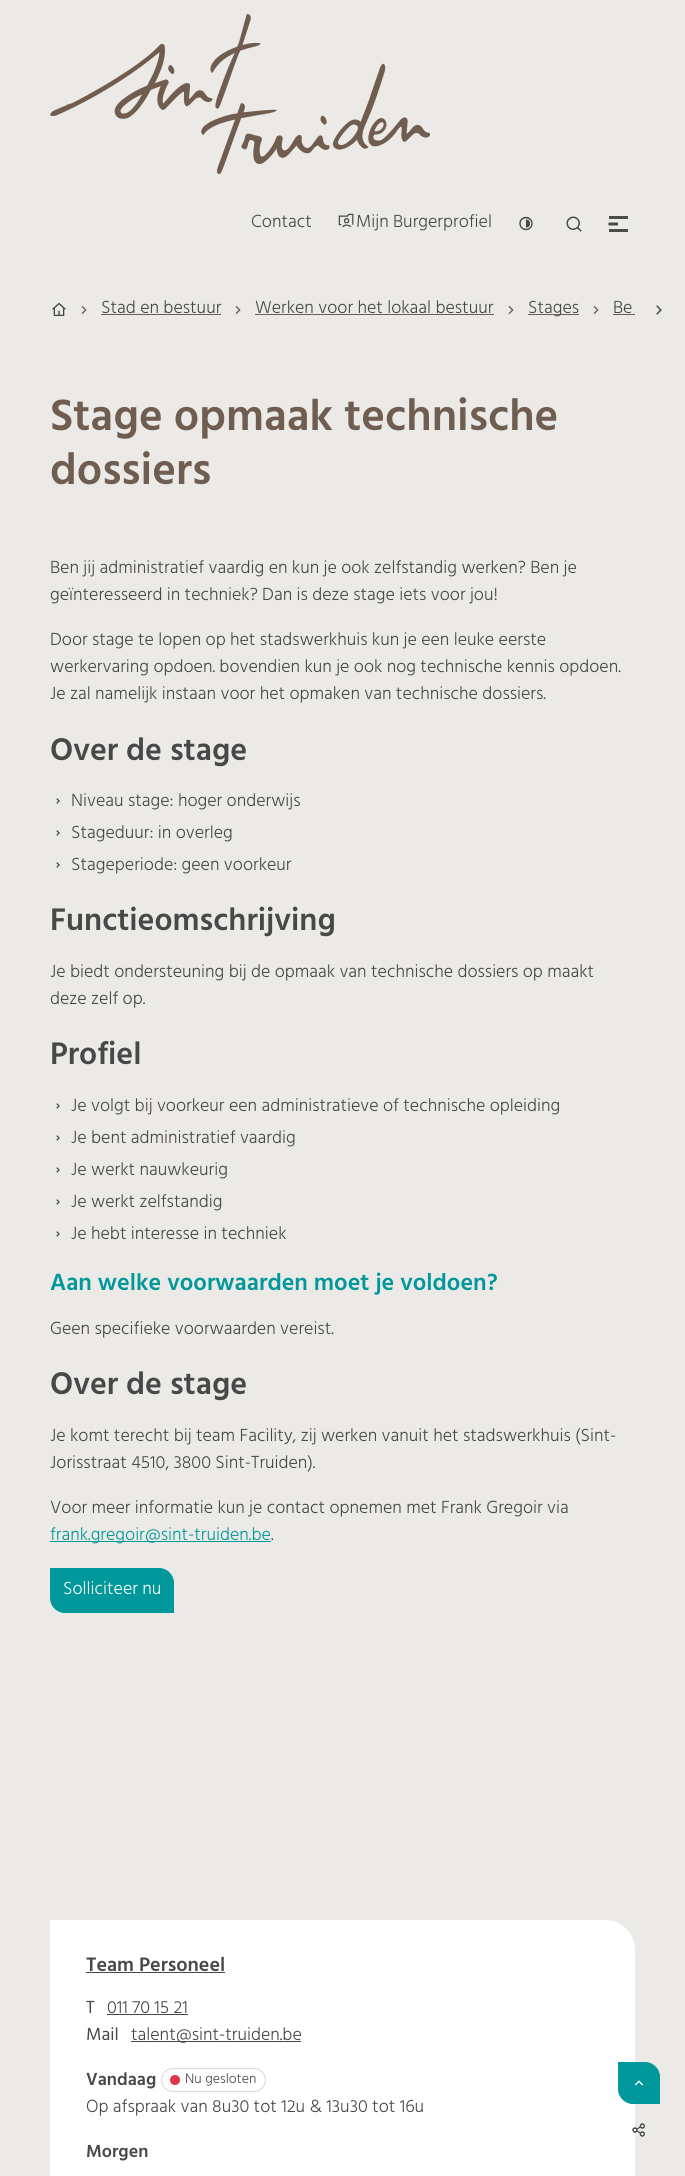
import math
import cairocffi as cairo

surface = cairo.ImageSurface(cairo.FORMAT_RGB24, 685, 2176)
cr = cairo.Context(surface)
options = cairo.FontOptions()
options.set_hint_metrics(cairo.HINT_METRICS_OFF)
options.set_hint_style(cairo.HINT_STYLE_NONE)
cr.set_font_options(options)
cr.set_miter_limit(4)


def use_color(code):
    cr.set_source_rgb(*(v / 255 for v in bytes.fromhex(code[-6:])))


def round_rect(x, y, w, h, r):
    cr.new_sub_path()
    for i, (u, v) in enumerate([(x + w - r, y + h - r), (x + r, y + h - r), (x + r, y + r), (x + w - r, y + r)]):
        cr.arc(u, v, r, i * math.pi / 2, (i + 1) * math.pi / 2)
    cr.close_path()


def picture(path, x, y, w, h):
    cr.save()
    cr.set_source_surface(cairo.ImageSurface.create_from_png(path), x, y)
    cr.rectangle(x, y, w, h)
    cr.fill()
    cr.restore()


use_color("#eceae7")
cr.paint()
picture("img1.png", 50, 14, 380, 160)
cr.select_font_face("Hind Light")
cr.set_font_size(18)
use_color("#484848")
cr.move_to(251, 227)
cr.show_text("Contact")
picture("img2.png", 338, 213, 16, 15)
cr.move_to(356, 227)
cr.show_text("Mijn Burgerprofiel")
picture("img3.png", 519, 216, 14, 15)
picture("img4.png", 566, 216, 16, 16)
use_color("#4d4d4d")
cr.rectangle(609, 216, 19, 3)
cr.fill()
cr.new_path()
cr.move_to(608.5, 224)
cr.line_to(618, 224)
use_color("#484848")
cr.set_line_width(2.9)
cr.stroke()
use_color("#4d4d4d")
cr.rectangle(609, 229, 19, 3)
cr.fill()
picture("img5.png", 51, 302, 16, 14)
picture("img6.png", 81, 305, 6, 10)
use_color("#484848")
cr.move_to(101, 313)
cr.show_text("Stad en bestuur")
use_color("#6f5d51")
cr.rectangle(101, 314, 120, 1)
cr.fill()
picture("img6.png", 235, 305, 6, 10)
use_color("#484848")
cr.move_to(255, 313)
cr.show_text("Werken voor het lokaal bestuur")
use_color("#6f5d51")
cr.rectangle(255, 314, 239, 1)
cr.fill()
picture("img7.png", 508, 305, 6, 10)
cr.rectangle(528, 314, 51, 1)
cr.fill()
use_color("#484848")
cr.move_to(528, 313)
cr.show_text("Stages")
picture("img6.png", 593, 305, 6, 10)
cr.move_to(613, 313)
cr.show_text("Be")
use_color("#6f5d51")
cr.rectangle(613, 314, 22, 1)
cr.fill()
picture("img8.png", 656, 305, 6, 10)
cr.select_font_face("Hind SemiBold")
cr.set_font_size(45)
cr.move_to(50, 430)
cr.show_text("Stage opmaak technische")
cr.move_to(50, 484)
cr.show_text("dossiers")
cr.select_font_face("Hind Light")
cr.set_font_size(18)
use_color("#484848")
cr.move_to(50, 573)
cr.show_text("Ben jij administratief vaardig en kun je ook zelfstandig werken? Ben je")
cr.move_to(50, 600)
cr.show_text("geïnteresseerd in techniek? Dan is deze stage iets voor jou!")
cr.move_to(50, 645)
cr.show_text("Door stage te lopen op het stadswerkhuis kun je een leuke eerste")
cr.move_to(50, 672)
cr.show_text("werkervaring opdoen. bovendien kun je ook nog technische kennis opdoen.")
cr.move_to(50, 699)
cr.show_text("Je zal namelijk instaan voor het opmaken van technische dossiers.")
cr.select_font_face("Hind SemiBold")
cr.set_font_size(32)
cr.move_to(50, 760)
cr.show_text("Over de stage")
picture("img9.png", 56, 798, 4, 6)
cr.select_font_face("Hind Light")
cr.set_font_size(18)
cr.move_to(71, 806)
cr.show_text("Niveau stage: hoger onderwijs")
picture("img9.png", 56, 830, 4, 6)
cr.move_to(71, 838)
cr.show_text("Stageduur: in overleg")
picture("img9.png", 56, 862, 4, 6)
cr.move_to(71, 870)
cr.show_text("Stageperiode: geen voorkeur")
cr.select_font_face("Hind SemiBold")
cr.set_font_size(32)
cr.move_to(50, 930)
cr.show_text("Functieomschrijving")
cr.select_font_face("Hind Light")
cr.set_font_size(18)
cr.move_to(50, 977)
cr.show_text("Je biedt ondersteuning bij de opmaak van technische dossiers op maakt")
cr.move_to(50, 1004)
cr.show_text("deze zelf op.")
cr.select_font_face("Hind SemiBold")
cr.set_font_size(32)
cr.move_to(50, 1064)
cr.show_text("Profiel")
picture("img9.png", 56, 1103, 4, 6)
cr.select_font_face("Hind Light")
cr.set_font_size(18)
cr.move_to(71, 1111)
cr.show_text("Je volgt bij voorkeur een administratieve of technische opleiding")
picture("img9.png", 56, 1135, 4, 6)
cr.move_to(71, 1143)
cr.show_text("Je bent administratief vaardig")
picture("img9.png", 56, 1167, 4, 6)
cr.move_to(71, 1175)
cr.show_text("Je werkt nauwkeurig")
picture("img9.png", 56, 1199, 4, 6)
cr.move_to(71, 1207)
cr.show_text("Je werkt zelfstandig")
picture("img9.png", 56, 1231, 4, 6)
cr.move_to(71, 1239)
cr.show_text("Je hebt interesse in techniek")
cr.select_font_face("Hind SemiBold")
cr.set_font_size(24)
use_color("#00989a")
cr.move_to(50, 1290)
cr.show_text("Aan welke voorwaarden moet je voldoen?")
cr.select_font_face("Hind Light")
cr.set_font_size(18)
use_color("#484848")
cr.move_to(50, 1334)
cr.show_text("Geen specifieke voorwaarden vereist.")
cr.select_font_face("Hind SemiBold")
cr.set_font_size(32)
cr.move_to(50, 1394)
cr.show_text("Over de stage")
cr.select_font_face("Hind Light")
cr.set_font_size(18)
cr.move_to(50, 1441)
cr.show_text("Je komt terecht bij team Facility, zij werken vanuit het stadswerkhuis (Sint-")
cr.move_to(50, 1468)
cr.show_text("Jorisstraat 4510, 3800 Sint-Truiden).")
cr.move_to(50, 1513)
cr.show_text("Voor meer informatie kun je contact opnemen met Frank Gregoir via")
use_color("#00989a")
cr.rectangle(50, 1541, 221, 1)
cr.fill()
cr.move_to(50, 1540)
cr.show_text("frank.gregoir@sint-truiden.be")
use_color("#484848")
cr.move_to(271, 1540)
cr.show_text(".")
use_color("#00989a")
cr.new_path()
cr.move_to(50.5, 1568.5)
cr.line_to(159, 1568.5)
cr.curve_to(167, 1568.5, 173.5, 1575, 173.5, 1583)
cr.line_to(173.5, 1612.5)
cr.line_to(65, 1612.5)
cr.curve_to(57, 1612.5, 50.5, 1606, 50.5, 1598)
cr.close_path()
cr.fill_preserve()
cr.set_line_width(1)
cr.stroke()
use_color("#ffffff")
cr.move_to(63, 1594)
cr.show_text("Solliciteer nu")
cr.new_path()
cr.move_to(50, 1920)
cr.line_to(605, 1920)
cr.curve_to(621.5, 1920, 635, 1933.5, 635, 1950)
cr.line_to(635, 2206)
cr.line_to(80, 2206)
cr.curve_to(63.5, 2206, 50, 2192.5, 50, 2176)
cr.close_path()
cr.fill()
cr.new_path()
cr.move_to(50.5, 1920.5)
cr.line_to(605, 1920.5)
cr.curve_to(621.5, 1920.5, 634.5, 1933.5, 634.5, 1950)
cr.line_to(634.5, 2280.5)
cr.line_to(80, 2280.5)
cr.curve_to(63.5, 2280.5, 50.5, 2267.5, 50.5, 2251)
cr.close_path()
cr.set_dash([1, 1])
cr.stroke()
cr.select_font_face("Hind SemiBold")
cr.set_font_size(20)
use_color("#484848")
cr.move_to(86, 1971)
cr.show_text("Team Personeel")
cr.rectangle(86, 1972, 139, 1)
cr.fill()
cr.select_font_face("Hind")
cr.set_font_size(18)
cr.move_to(86, 2013)
cr.show_text("T")
cr.select_font_face("Hind Light")
cr.move_to(107, 2013)
cr.show_text("011 70 15 21")
cr.rectangle(107, 2014, 81, 1)
cr.fill()
cr.select_font_face("Hind")
cr.move_to(86, 2040)
cr.show_text("Mail")
cr.rectangle(131, 2041, 170, 1)
cr.fill()
cr.select_font_face("Hind Light")
cr.move_to(131, 2040)
cr.show_text("talent@sint-truiden.be")
cr.select_font_face("Hind SemiBold")
cr.move_to(86, 2085)
cr.show_text("Vandaag")
round_rect(161.5, 2068.5, 104, 23, 11.5)
use_color("#d7d7d7")
cr.set_dash([])
cr.stroke()
use_color("#dc3848")
cr.arc(175, 2080, 5, 0, 2 * math.pi)
cr.fill()
cr.select_font_face("Hind Light")
cr.set_font_size(14)
use_color("#484848")
cr.move_to(185, 2083)
cr.show_text("Nu gesloten")
cr.set_font_size(18)
cr.move_to(86, 2112)
cr.show_text("Op afspraak van 8u30 tot 12u & 13u30 tot 16u")
cr.select_font_face("Hind SemiBold")
cr.move_to(86, 2157)
cr.show_text("Morgen")
use_color("#00989a")
cr.new_path()
cr.move_to(618.5, 2062.5)
cr.line_to(645, 2062.5)
cr.curve_to(653, 2062.5, 659.5, 2069, 659.5, 2077)
cr.line_to(659.5, 2103.5)
cr.line_to(633, 2103.5)
cr.curve_to(625, 2103.5, 618.5, 2097, 618.5, 2089)
cr.close_path()
cr.fill_preserve()
cr.stroke()
picture("img10.png", 634, 2080, 10, 6)
picture("img11.png", 632, 2123, 13, 14)
surface.write_to_png("result.png")
